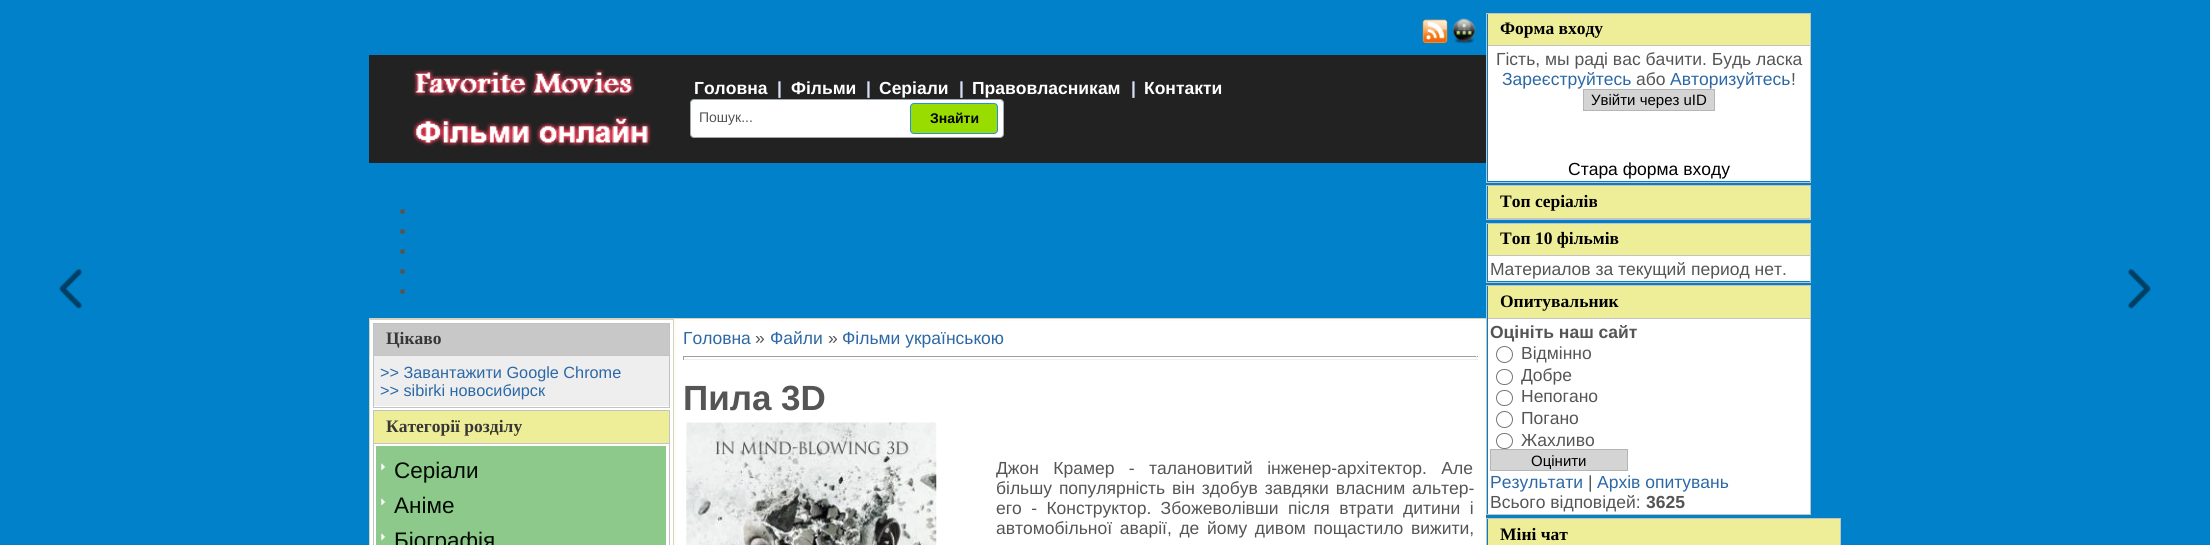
import math
import cairocffi as cairo

surface = cairo.ImageSurface(cairo.FORMAT_RGB24, 2210, 545)
cr = cairo.Context(surface)
options = cairo.FontOptions()
options.set_hint_metrics(cairo.HINT_METRICS_OFF)
options.set_hint_style(cairo.HINT_STYLE_NONE)
cr.set_font_options(options)
cr.set_miter_limit(4)


def use_color(code):
    cr.set_source_rgb(*(v / 255 for v in bytes.fromhex(code[-6:])))


def spaced_text(x, y, s, letter, word):
    cr.move_to(x, y)
    for ch in s:
        cr.show_text(ch)
        cr.rel_move_to(letter + word * (ch == ' '), 0)


def round_rect(x, y, w, h, r):
    cr.new_sub_path()
    for i, (u, v) in enumerate([(x + w - r, y + h - r), (x + r, y + h - r), (x + r, y + r), (x + w - r, y + r)]):
        cr.arc(u, v, r, i * math.pi / 2, (i + 1) * math.pi / 2)
    cr.close_path()


def picture(path, x, y, w, h):
    cr.save()
    cr.set_source_surface(cairo.ImageSurface.create_from_png(path), x, y)
    cr.rectangle(x, y, w, h)
    cr.fill()
    cr.restore()


use_color("#0081c9")
cr.paint()
picture("img1.png", 1422, 19, 26, 24)
picture("img2.png", 1452, 18, 24, 26)
use_color("#222222")
cr.rectangle(369, 55, 1117, 108)
cr.fill()
picture("img3.png", 412, 69, 240, 78)
cr.select_font_face("Liberation Sans", cairo.FONT_SLANT_NORMAL, cairo.FONT_WEIGHT_BOLD)
cr.set_font_size(17.5)
use_color("#ffffff")
cr.move_to(694, 94)
cr.show_text("Головна")
use_color("#d6dff7")
cr.move_to(777, 94)
cr.show_text("|")
use_color("#ffffff")
cr.move_to(791, 94)
cr.show_text("Фільми")
use_color("#d6dff7")
cr.move_to(866, 94)
cr.show_text("|")
use_color("#ffffff")
cr.move_to(879, 94)
cr.show_text("Серіали")
use_color("#d6dff7")
cr.move_to(959, 94)
cr.show_text("|")
use_color("#ffffff")
cr.move_to(972, 94)
cr.show_text("Правовласникам")
use_color("#d6dff7")
cr.move_to(1131, 94)
cr.show_text("|")
use_color("#ffffff")
cr.move_to(1144, 94)
cr.show_text("Контакти")
round_rect(690.5, 99.5, 313, 38, 3.5)
cr.fill_preserve()
use_color("#a0a8ac")
cr.set_line_width(1)
cr.stroke()
cr.select_font_face("Liberation Sans")
cr.set_font_size(14)
use_color("#555555")
cr.move_to(699, 122)
cr.show_text("Пошук...")
use_color("#99dd00")
round_rect(910.5, 103.5, 87, 30, 3.5)
cr.fill_preserve()
use_color("#2290e3")
cr.stroke()
cr.select_font_face("Liberation Sans", cairo.FONT_SLANT_NORMAL, cairo.FONT_WEIGHT_BOLD)
use_color("#000000")
cr.move_to(930, 123)
cr.show_text("Знайти")
use_color("#555555")
cr.new_path()
cr.arc(402.5, 211.5, 2.5, 0, 2 * math.pi)
cr.fill()
cr.arc(402.5, 231.5, 2.5, 0, 2 * math.pi)
cr.fill()
cr.arc(402.5, 251.5, 2.5, 0, 2 * math.pi)
cr.fill()
cr.arc(402.5, 271.5, 2.5, 0, 2 * math.pi)
cr.fill()
cr.arc(402.5, 291.5, 2.5, 0, 2 * math.pi)
cr.fill()
use_color("#d5d2bf")
cr.rectangle(369, 318, 1117, 1)
cr.fill()
use_color("#ffffff")
cr.rectangle(369.5, 319.5, 304, 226)
cr.fill_preserve()
use_color("#d5d2bf")
cr.stroke()
cr.rectangle(373.5, 323.5, 296, 84)
use_color("#c3c3c3")
cr.stroke()
use_color("#c8c8c8")
cr.rectangle(374, 324, 295, 31)
cr.fill()
use_color("#c3c3c3")
cr.rectangle(374, 355, 295, 1)
cr.fill()
cr.select_font_face("Liberation Serif", cairo.FONT_SLANT_NORMAL, cairo.FONT_WEIGHT_BOLD)
cr.set_font_size(17.5)
use_color("#373736")
cr.move_to(386, 344)
cr.show_text("Цікаво")
use_color("#eeeeee")
cr.rectangle(374, 356, 295, 50)
cr.fill()
cr.select_font_face("Liberation Sans")
cr.set_font_size(16.25)
use_color("#2c68a6")
cr.move_to(380, 378)
cr.show_text(">> Завантажити Google Chrome")
cr.move_to(380, 396)
cr.show_text(">> sibirki новосибирск")
cr.rectangle(373.5, 410.5, 296, 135)
use_color("#c3c3c3")
cr.stroke()
use_color("#eeee99")
cr.rectangle(374, 411, 295, 32)
cr.fill()
use_color("#c3c3c3")
cr.rectangle(374, 443, 295, 1)
cr.fill()
cr.select_font_face("Liberation Serif", cairo.FONT_SLANT_NORMAL, cairo.FONT_WEIGHT_BOLD)
cr.set_font_size(17.5)
use_color("#373736")
cr.move_to(386, 432)
cr.show_text("Категорії розділу")
use_color("#8ec98c")
cr.rectangle(376, 446, 290, 99)
cr.fill()
picture("img4.png", 381, 463, 5, 8)
cr.select_font_face("Liberation Sans")
cr.set_font_size(22.5)
use_color("#000900")
cr.move_to(394, 478)
cr.show_text("Серіали")
picture("img4.png", 381, 498, 5, 8)
cr.move_to(394, 513)
cr.show_text("Аніме")
picture("img4.png", 381, 533, 5, 8)
cr.move_to(394, 548)
cr.show_text("Біографія")
cr.rectangle(674.5, 319.5, 811, 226)
use_color("#fdfdf5")
cr.stroke()
use_color("#ffffff")
cr.rectangle(675.5, 320.5, 809, 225)
cr.fill_preserve()
use_color("#fdfdf5")
cr.stroke()
cr.set_font_size(17.5)
use_color("#2c68a6")
cr.move_to(683, 344)
cr.show_text("Головна")
use_color("#555555")
cr.move_to(755, 344)
cr.show_text("»")
use_color("#2c68a6")
cr.move_to(770, 344)
cr.show_text("Файли")
use_color("#555555")
cr.move_to(828, 344)
cr.show_text("»")
use_color("#2c68a6")
cr.move_to(842, 344)
cr.show_text("Фільми українською")
use_color("#9f9f9f")
cr.rectangle(683, 356, 795, 1)
cr.fill()
use_color("#eeeeee")
cr.rectangle(1476, 356, 1, 4)
cr.fill()
cr.rectangle(683, 359, 795, 1)
cr.fill()
use_color("#9f9f9f")
cr.rectangle(683, 356, 1, 4)
cr.fill()
cr.select_font_face("Liberation Sans", cairo.FONT_SLANT_NORMAL, cairo.FONT_WEIGHT_BOLD)
cr.set_font_size(35)
use_color("#555555")
cr.move_to(683, 410)
cr.show_text("Пила 3D")
picture("img5.png", 686, 422, 251, 123)
cr.select_font_face("Liberation Sans")
cr.set_font_size(17.5)
spaced_text(996, 474, "Джон Крамер - талановитий інженер-архітектор. Але", 0, 9.5)
spaced_text(996, 494, "більшу популярність він здобув завдяки власним альтер-", 0, 2)
spaced_text(996, 514, "его - Конструктор. Збожеволівши після втрати дитини і", 0, 4.5)
spaced_text(996, 534, "автомобільної аварії, де йому дивом пощастило вижити,", 0, 2.75)
cr.rectangle(1486.5, 13.5, 324, 169)
use_color("#c3c3c3")
cr.stroke()
use_color("#eeee99")
cr.rectangle(1488, 14, 322, 31)
cr.fill()
use_color("#c3c3c3")
cr.rectangle(1488, 45, 322, 1)
cr.fill()
cr.select_font_face("Liberation Serif", cairo.FONT_SLANT_NORMAL, cairo.FONT_WEIGHT_BOLD)
use_color("#000000")
cr.move_to(1500, 34)
cr.show_text("Форма входу")
use_color("#ffffff")
cr.rectangle(1488, 46, 322, 135)
cr.fill()
cr.select_font_face("Liberation Sans")
use_color("#555555")
cr.move_to(1496, 65)
cr.show_text("Гість, мы раді вас бачити. Будь ласка")
use_color("#2c68a6")
cr.move_to(1502, 85)
cr.show_text("Зареєструйтесь")
use_color("#555555")
cr.move_to(1636, 85)
cr.show_text("або")
use_color("#2c68a6")
cr.move_to(1670, 85)
cr.show_text("Авторизуйтесь")
use_color("#555555")
cr.move_to(1791, 85)
cr.show_text("!")
use_color("#d4d4d4")
cr.rectangle(1583.5, 89.5, 131, 21)
cr.fill_preserve()
use_color("#b5b5b5")
cr.stroke()
cr.set_font_size(15)
use_color("#000000")
cr.move_to(1591, 105)
cr.show_text("Увійти через uID")
cr.set_font_size(17.5)
cr.move_to(1568, 175)
cr.show_text("Стара форма входу")
cr.rectangle(1486.5, 185.5, 324, 34)
use_color("#c3c3c3")
cr.stroke()
use_color("#eeee99")
cr.rectangle(1488, 186, 322, 32)
cr.fill()
use_color("#c3c3c3")
cr.rectangle(1488, 218, 322, 1)
cr.fill()
cr.select_font_face("Liberation Serif", cairo.FONT_SLANT_NORMAL, cairo.FONT_WEIGHT_BOLD)
use_color("#000000")
cr.move_to(1500, 207)
cr.show_text("Топ серіалів")
cr.rectangle(1486.5, 223.5, 324, 59)
use_color("#c3c3c3")
cr.stroke()
use_color("#eeee99")
cr.rectangle(1488, 224, 322, 31)
cr.fill()
use_color("#c3c3c3")
cr.rectangle(1488, 255, 322, 1)
cr.fill()
use_color("#000000")
cr.move_to(1500, 244)
cr.show_text("Топ 10 фільмів")
use_color("#ffffff")
cr.rectangle(1488, 256, 322, 25)
cr.fill()
cr.select_font_face("Liberation Sans")
use_color("#555555")
cr.move_to(1490, 275)
cr.show_text("Материалов за текущий период нет.")
cr.rectangle(1486.5, 285.5, 324, 229)
use_color("#c3c3c3")
cr.stroke()
use_color("#eeee99")
cr.rectangle(1488, 286, 322, 32)
cr.fill()
use_color("#c3c3c3")
cr.rectangle(1488, 318, 322, 1)
cr.fill()
cr.select_font_face("Liberation Serif", cairo.FONT_SLANT_NORMAL, cairo.FONT_WEIGHT_BOLD)
use_color("#000000")
cr.move_to(1500, 307)
cr.show_text("Опитувальник")
use_color("#ffffff")
cr.rectangle(1488, 319, 322, 195)
cr.fill()
cr.select_font_face("Liberation Sans", cairo.FONT_SLANT_NORMAL, cairo.FONT_WEIGHT_BOLD)
use_color("#555555")
cr.move_to(1490, 338)
cr.show_text("Оцініть наш сайт")
cr.new_path()
cr.arc(1504.5, 354.5, 8, 0, 2 * math.pi)
use_color("#767676")
cr.stroke()
cr.select_font_face("Liberation Sans")
use_color("#555555")
cr.move_to(1521, 359)
cr.show_text("Відмінно")
round_rect(1496.5, 369.5, 16, 15, 7.5)
use_color("#767676")
cr.stroke()
use_color("#555555")
cr.move_to(1521, 381)
cr.show_text("Добре")
round_rect(1496.5, 390.5, 16, 15, 7.5)
use_color("#767676")
cr.stroke()
use_color("#555555")
cr.move_to(1521, 402)
cr.show_text("Непогано")
cr.new_path()
cr.arc(1504.5, 419.5, 8, 0, 2 * math.pi)
use_color("#767676")
cr.stroke()
use_color("#555555")
cr.move_to(1521, 424)
cr.show_text("Погано")
round_rect(1496.5, 433.5, 16, 15, 7.5)
use_color("#767676")
cr.stroke()
use_color("#555555")
cr.move_to(1521, 446)
cr.show_text("Жахливо")
use_color("#d4d4d4")
cr.rectangle(1490.5, 449.5, 137, 21)
cr.fill_preserve()
use_color("#b5b5b5")
cr.stroke()
cr.set_font_size(15)
use_color("#000000")
cr.move_to(1531, 466)
cr.show_text("Оцінити")
cr.set_font_size(17.5)
use_color("#2c68a6")
cr.move_to(1490, 488)
cr.show_text("Результати")
use_color("#555555")
cr.move_to(1588, 488)
cr.show_text("|")
use_color("#2c68a6")
cr.move_to(1597, 488)
cr.show_text("Архів опитувань")
use_color("#555555")
cr.move_to(1490, 508)
cr.show_text("Всього відповідей:")
cr.select_font_face("Liberation Sans", cairo.FONT_SLANT_NORMAL, cairo.FONT_WEIGHT_BOLD)
cr.move_to(1646, 508)
cr.show_text("3625")
cr.rectangle(1486.5, 518.5, 354, 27)
use_color("#c3c3c3")
cr.stroke()
use_color("#eeee99")
cr.rectangle(1488, 519, 352, 26)
cr.fill()
cr.select_font_face("Liberation Serif", cairo.FONT_SLANT_NORMAL, cairo.FONT_WEIGHT_BOLD)
use_color("#000000")
cr.move_to(1500, 540)
cr.show_text("Міні чат")
picture("img6.png", 59, 269, 23, 40)
picture("img7.png", 2128, 269, 23, 40)
surface.write_to_png("result.png")
